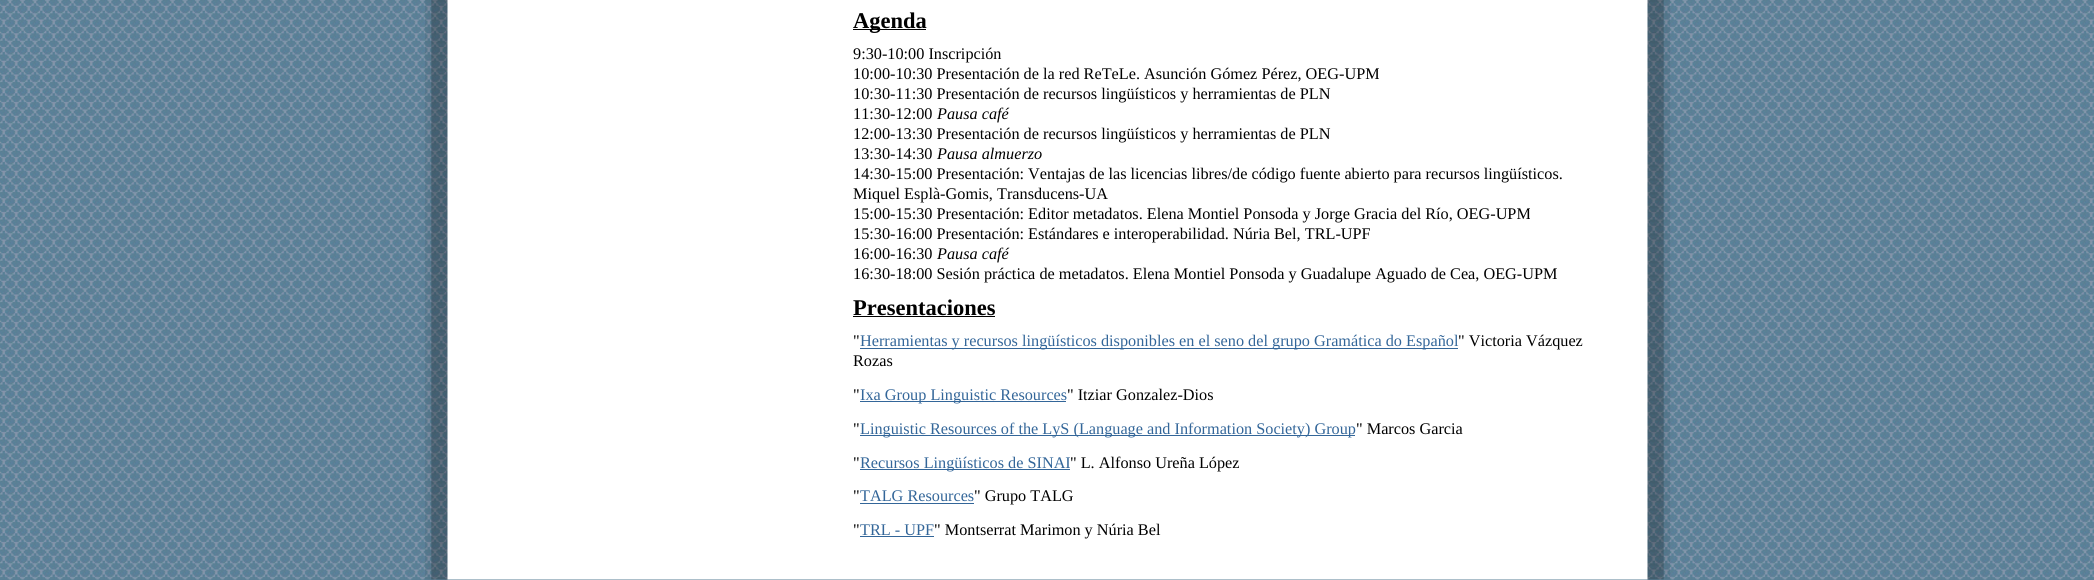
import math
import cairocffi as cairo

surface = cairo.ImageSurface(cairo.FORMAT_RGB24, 2094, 580)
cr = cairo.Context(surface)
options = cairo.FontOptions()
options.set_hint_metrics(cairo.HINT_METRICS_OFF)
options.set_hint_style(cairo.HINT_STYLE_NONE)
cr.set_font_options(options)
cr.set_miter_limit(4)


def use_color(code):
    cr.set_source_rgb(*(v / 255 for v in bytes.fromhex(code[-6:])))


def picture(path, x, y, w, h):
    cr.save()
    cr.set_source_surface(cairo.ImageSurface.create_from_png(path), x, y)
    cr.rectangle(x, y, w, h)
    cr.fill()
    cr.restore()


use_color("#587e95")
cr.paint()
picture("img1.png", 0, 0, 2094, 580)
use_color("#000000")
cr.rectangle(853, 29, 73, 1)
cr.fill()
cr.select_font_face("Liberation Serif", cairo.FONT_SLANT_NORMAL, cairo.FONT_WEIGHT_BOLD)
cr.set_font_size(22.5)
cr.move_to(853, 28)
cr.show_text("Agenda")
cr.select_font_face("Liberation Serif")
cr.set_font_size(16.25)
cr.move_to(853, 59)
cr.show_text("9:30-10:00 Inscripción")
cr.move_to(853, 79)
cr.show_text("10:00-10:30 Presentación de la red ReTeLe. Asunción Gómez Pérez, OEG-UPM")
cr.move_to(853, 99)
cr.show_text("10:30-11:30 Presentación de recursos lingüísticos y herramientas de PLN")
cr.move_to(853, 119)
cr.show_text("11:30-12:00")
cr.select_font_face("Liberation Serif", cairo.FONT_SLANT_ITALIC)
cr.move_to(937, 119)
cr.show_text("Pausa café")
cr.select_font_face("Liberation Serif")
cr.move_to(853, 139)
cr.show_text("12:00-13:30 Presentación de recursos lingüísticos y herramientas de PLN")
cr.move_to(853, 159)
cr.show_text("13:30-14:30")
cr.select_font_face("Liberation Serif", cairo.FONT_SLANT_ITALIC)
cr.move_to(937, 159)
cr.show_text("Pausa almuerzo")
cr.select_font_face("Liberation Serif")
cr.move_to(853, 179)
cr.show_text("14:30-15:00 Presentación: Ventajas de las licencias libres/de código fuente abierto para recursos lingüísticos.")
cr.move_to(853, 199)
cr.show_text("Miquel Esplà-Gomis, Transducens-UA")
cr.move_to(853, 219)
cr.show_text("15:00-15:30 Presentación: Editor metadatos. Elena Montiel Ponsoda y Jorge Gracia del Río, OEG-UPM")
cr.move_to(853, 239)
cr.show_text("15:30-16:00 Presentación: Estándares e interoperabilidad. Núria Bel, TRL-UPF")
cr.move_to(853, 259)
cr.show_text("16:00-16:30")
cr.select_font_face("Liberation Serif", cairo.FONT_SLANT_ITALIC)
cr.move_to(937, 259)
cr.show_text("Pausa café")
cr.select_font_face("Liberation Serif")
cr.move_to(853, 279)
cr.show_text("16:30-18:00 Sesión práctica de metadatos. Elena Montiel Ponsoda y Guadalupe Aguado de Cea, OEG-UPM")
cr.select_font_face("Liberation Serif", cairo.FONT_SLANT_NORMAL, cairo.FONT_WEIGHT_BOLD)
cr.set_font_size(22.5)
cr.move_to(853, 315)
cr.show_text("Presentaciones")
cr.rectangle(853, 316, 142, 1)
cr.fill()
cr.select_font_face("Liberation Serif")
cr.set_font_size(16.25)
cr.move_to(853, 346)
cr.show_text("\"")
use_color("#336699")
cr.rectangle(860, 348, 598, 1)
cr.fill()
cr.move_to(860, 346)
cr.show_text("Herramientas y recursos lingüísticos disponibles en el seno del grupo Gramática do Español")
use_color("#000000")
cr.move_to(1458, 346)
cr.show_text("\" Victoria Vázquez")
cr.move_to(853, 366)
cr.show_text("Rozas")
cr.move_to(853, 400)
cr.show_text("\"")
use_color("#336699")
cr.rectangle(860, 401, 206, 1)
cr.fill()
cr.move_to(860, 400)
cr.show_text("Ixa Group Linguistic Resources")
use_color("#000000")
cr.move_to(1067, 400)
cr.show_text("\" Itziar Gonzalez-Dios")
cr.move_to(853, 434)
cr.show_text("\"")
use_color("#336699")
cr.rectangle(860, 435, 495, 1)
cr.fill()
cr.move_to(860, 434)
cr.show_text("Linguistic Resources of the LyS (Language and Information Society) Group")
use_color("#000000")
cr.move_to(1356, 434)
cr.show_text("\" Marcos Garcia")
cr.move_to(853, 468)
cr.show_text("\"")
use_color("#336699")
cr.rectangle(860, 469, 210, 1)
cr.fill()
cr.move_to(860, 468)
cr.show_text("Recursos Lingüísticos de SINAI")
use_color("#000000")
cr.move_to(1070, 468)
cr.show_text("\" L. Alfonso Ureña López")
cr.move_to(853, 501)
cr.show_text("\"")
use_color("#336699")
cr.move_to(860, 501)
cr.show_text("TALG Resources")
use_color("#000000")
cr.move_to(974, 501)
cr.show_text("\" Grupo TALG")
use_color("#336699")
cr.rectangle(860, 503, 114, 1)
cr.fill()
use_color("#000000")
cr.move_to(853, 535)
cr.show_text("\"")
use_color("#336699")
cr.move_to(860, 535)
cr.show_text("TRL - UPF")
use_color("#000000")
cr.move_to(934, 535)
cr.show_text("\" Montserrat Marimon y Núria Bel")
use_color("#336699")
cr.rectangle(860, 536, 74, 1)
cr.fill()
surface.write_to_png("result.png")
